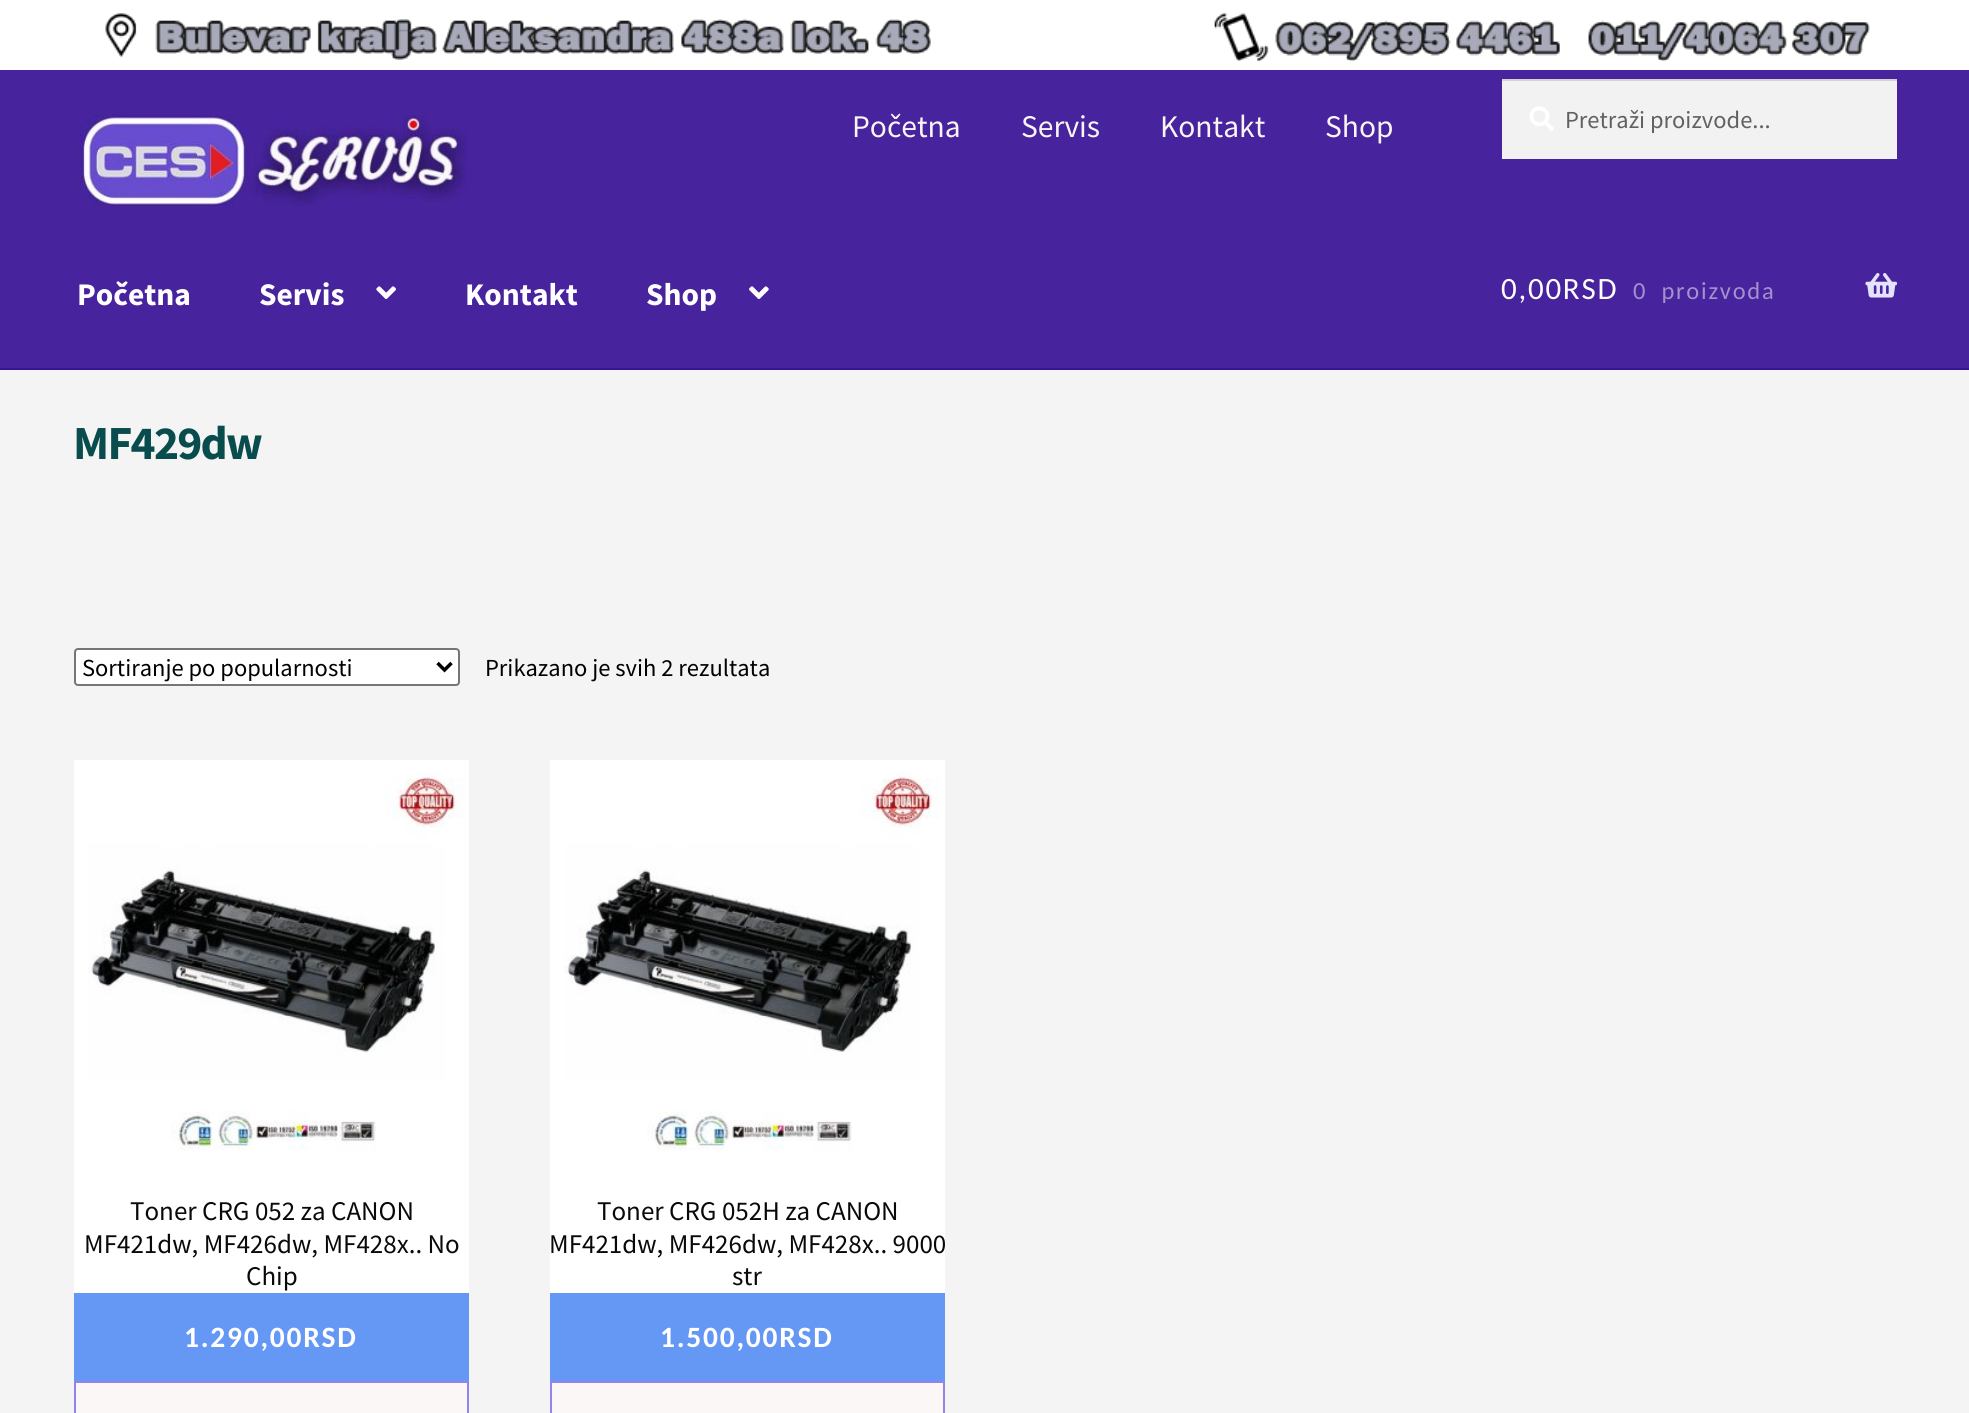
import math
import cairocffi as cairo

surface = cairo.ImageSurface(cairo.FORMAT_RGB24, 1969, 1413)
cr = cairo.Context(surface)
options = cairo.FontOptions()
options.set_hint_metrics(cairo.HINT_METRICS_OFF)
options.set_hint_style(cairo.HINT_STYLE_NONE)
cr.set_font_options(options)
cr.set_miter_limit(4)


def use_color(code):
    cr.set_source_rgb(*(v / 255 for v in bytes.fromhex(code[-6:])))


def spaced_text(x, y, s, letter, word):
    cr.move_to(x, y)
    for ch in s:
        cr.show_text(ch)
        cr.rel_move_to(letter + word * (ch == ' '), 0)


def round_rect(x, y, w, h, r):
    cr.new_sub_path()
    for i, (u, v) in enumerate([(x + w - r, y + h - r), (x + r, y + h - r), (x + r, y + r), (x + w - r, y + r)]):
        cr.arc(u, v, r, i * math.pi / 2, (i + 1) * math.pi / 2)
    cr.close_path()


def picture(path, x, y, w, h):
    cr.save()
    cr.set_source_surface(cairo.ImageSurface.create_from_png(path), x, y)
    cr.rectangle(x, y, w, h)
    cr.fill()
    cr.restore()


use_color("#f4f4f4")
cr.paint()
use_color("#ffffff")
cr.rectangle(0, 0, 1969, 70)
cr.fill()
picture("img1.png", 105, 13, 1765, 49)
use_color("#47239d")
cr.rectangle(0, 70, 1969, 298)
cr.fill()
use_color("#38148e")
cr.rectangle(0, 368, 1969, 2)
cr.fill()
picture("img2.png", 74, 114, 393, 92)
cr.select_font_face("Source Sans Pro")
cr.set_font_size(31.5)
use_color("#faf5f5")
cr.move_to(852, 137)
cr.show_text("Početna")
cr.move_to(1021, 137)
cr.show_text("Servis")
cr.move_to(1160, 137)
cr.show_text("Kontakt")
cr.move_to(1325, 137)
cr.show_text("Shop")
use_color("#f2f2f2")
cr.rectangle(1502, 81, 395, 78)
cr.fill()
picture("img3.png", 1529, 106, 25, 25)
use_color("#d4d4d4")
cr.rectangle(1502, 79, 395, 2)
cr.fill()
cr.set_font_size(24.5)
use_color("#616161")
cr.move_to(1565, 128)
cr.show_text("Pretraži proizvode...")
cr.select_font_face("Source Sans Pro", cairo.FONT_SLANT_NORMAL, cairo.FONT_WEIGHT_BOLD)
cr.set_font_size(31.5)
use_color("#ffffff")
cr.move_to(77, 305)
cr.show_text("Početna")
cr.move_to(259, 305)
cr.show_text("Servis")
picture("img4.png", 376, 286, 20, 13)
cr.move_to(465, 305)
cr.show_text("Kontakt")
cr.move_to(646, 305)
cr.show_text("Shop")
picture("img5.png", 749, 286, 20, 13)
cr.select_font_face("Carlito")
cr.set_font_size(31)
spaced_text(1501, 299, "0,00RSD", 1.75, 0)
cr.set_font_size(24.5)
use_color("#a390cd")
spaced_text(1633, 299, "0 proizvoda", 1.75, 7)
picture("img6.png", 1865, 273, 32, 25)
cr.select_font_face("Source Sans Pro", cairo.FONT_SLANT_NORMAL, cairo.FONT_WEIGHT_BOLD)
cr.set_font_size(47.5)
use_color("#094c4d")
spaced_text(73, 459, "MF429dw", -1.75, 0)
use_color("#ffffff")
round_rect(75, 649, 384, 36, 3)
cr.fill_preserve()
use_color("#767676")
cr.stroke()
cr.new_path()
cr.move_to(437.5, 663)
cr.line_to(444.5, 670)
cr.line_to(451.5, 663)
use_color("#000000")
cr.set_line_width(3.5)
cr.stroke()
cr.select_font_face("Source Sans Pro")
cr.set_font_size(24.5)
cr.move_to(82, 676)
cr.show_text("Sortiranje po popularnosti")
cr.move_to(485, 676)
cr.show_text("Prikazano je svih 2 rezultata")
use_color("#ffffff")
cr.rectangle(74, 760, 395, 533)
cr.fill()
picture("img7.png", 88, 772, 376, 379)
cr.set_font_size(27)
use_color("#0a0909")
cr.move_to(130, 1220)
cr.show_text("Toner CRG 052 za CANON")
cr.move_to(84, 1253)
cr.show_text("MF421dw, MF426dw, MF428x.. No")
cr.move_to(246, 1285)
cr.show_text("Chip")
use_color("#6597f5")
cr.rectangle(74, 1293, 395, 88)
cr.fill()
cr.select_font_face("Carlito", cairo.FONT_SLANT_NORMAL, cairo.FONT_WEIGHT_BOLD)
cr.set_font_size(29.5)
use_color("#ffffff")
spaced_text(184, 1347, "1.290,00RSD", 1.75, 0)
use_color("#fcf7f7")
cr.rectangle(75, 1382, 393, 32)
cr.fill_preserve()
use_color("#9384eb")
cr.set_line_width(2)
cr.stroke()
use_color("#ffffff")
cr.rectangle(550, 760, 395, 533)
cr.fill()
picture("img7.png", 564, 772, 376, 379)
cr.select_font_face("Source Sans Pro")
cr.set_font_size(27)
use_color("#0a0909")
cr.move_to(597, 1220)
cr.show_text("Toner CRG 052H za CANON")
cr.move_to(549, 1253)
cr.show_text("MF421dw, MF426dw, MF428x.. 9000")
cr.move_to(732, 1285)
cr.show_text("str")
use_color("#6597f5")
cr.rectangle(550, 1293, 395, 88)
cr.fill()
cr.select_font_face("Carlito", cairo.FONT_SLANT_NORMAL, cairo.FONT_WEIGHT_BOLD)
cr.set_font_size(29.5)
use_color("#ffffff")
spaced_text(660, 1347, "1.500,00RSD", 1.75, 0)
use_color("#fcf7f7")
cr.rectangle(551, 1382, 393, 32)
cr.fill_preserve()
use_color("#9384eb")
cr.stroke()
surface.write_to_png("result.png")
